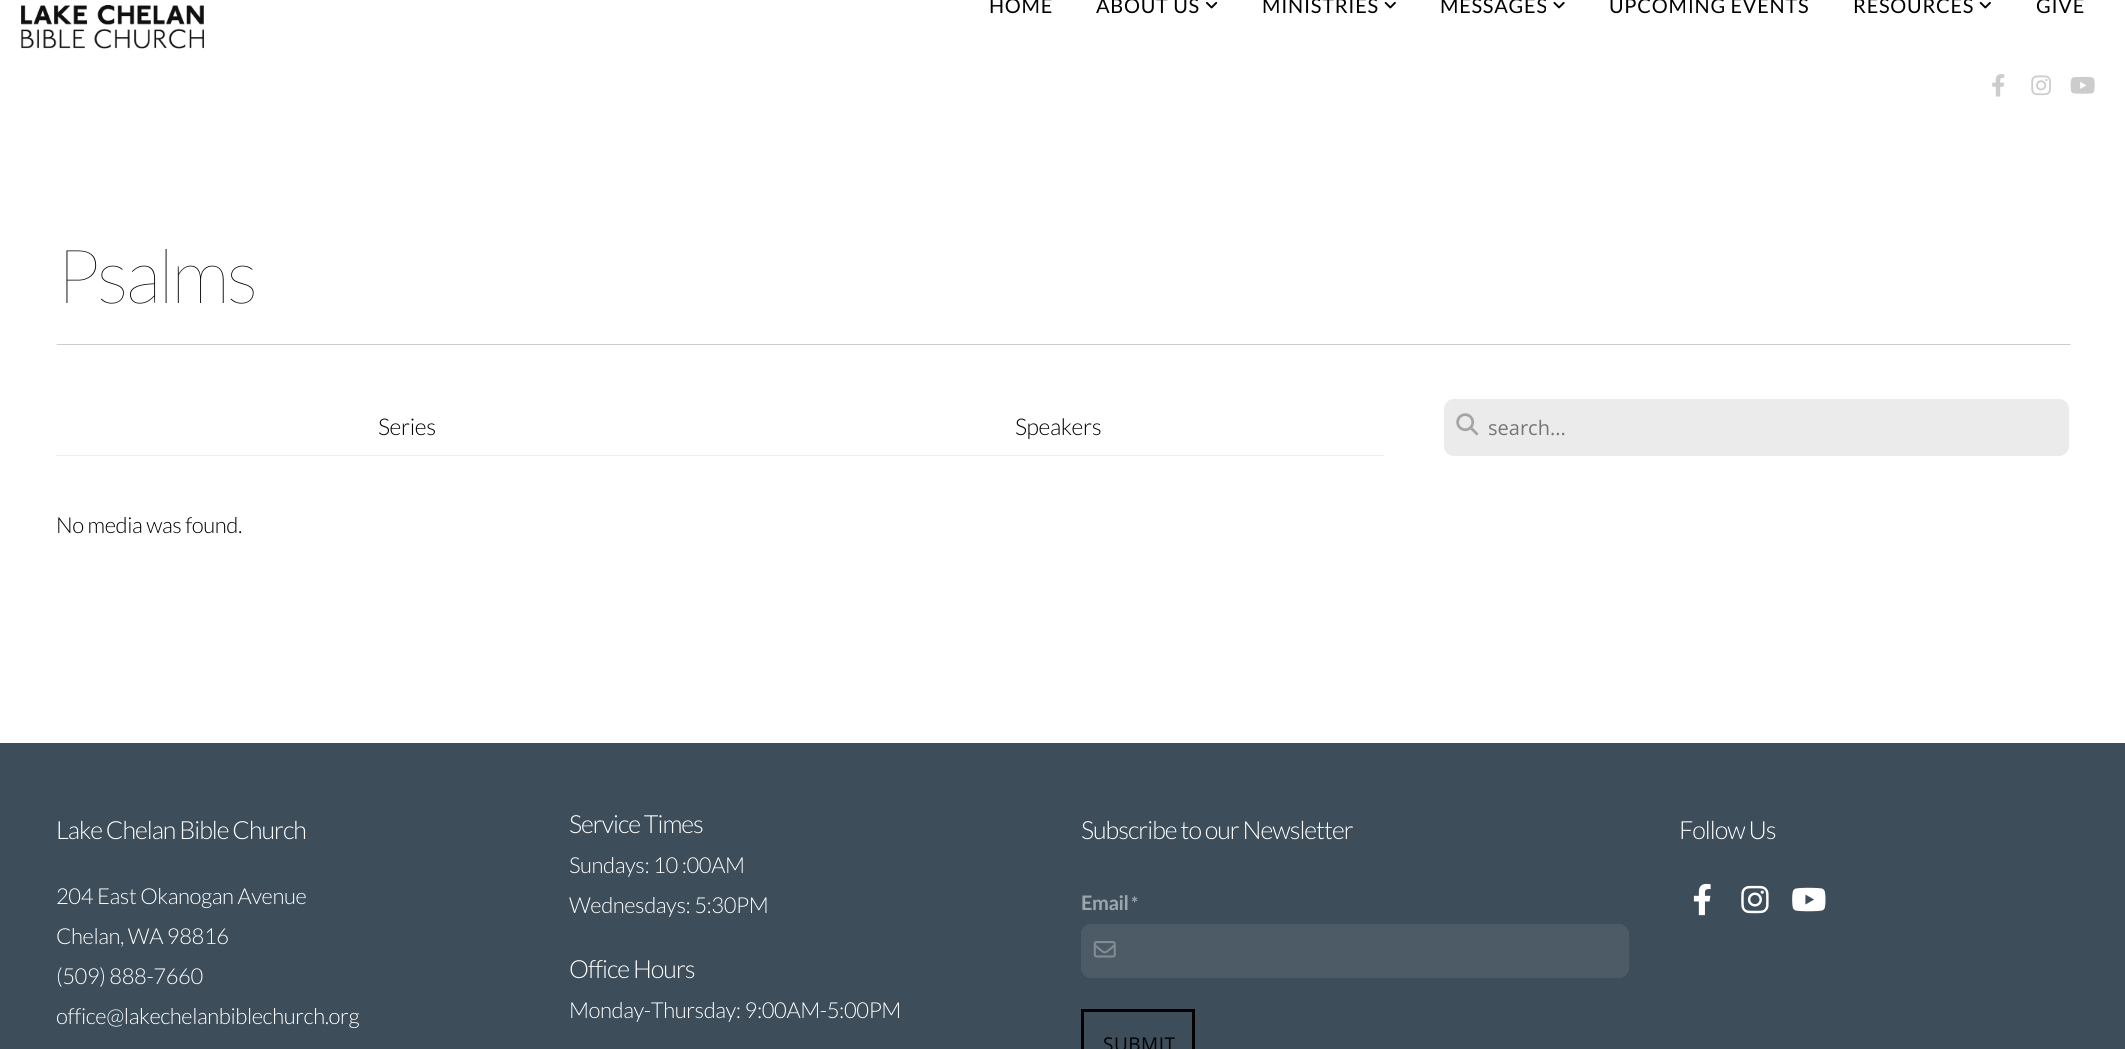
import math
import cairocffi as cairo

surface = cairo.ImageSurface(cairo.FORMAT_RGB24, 2125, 1049)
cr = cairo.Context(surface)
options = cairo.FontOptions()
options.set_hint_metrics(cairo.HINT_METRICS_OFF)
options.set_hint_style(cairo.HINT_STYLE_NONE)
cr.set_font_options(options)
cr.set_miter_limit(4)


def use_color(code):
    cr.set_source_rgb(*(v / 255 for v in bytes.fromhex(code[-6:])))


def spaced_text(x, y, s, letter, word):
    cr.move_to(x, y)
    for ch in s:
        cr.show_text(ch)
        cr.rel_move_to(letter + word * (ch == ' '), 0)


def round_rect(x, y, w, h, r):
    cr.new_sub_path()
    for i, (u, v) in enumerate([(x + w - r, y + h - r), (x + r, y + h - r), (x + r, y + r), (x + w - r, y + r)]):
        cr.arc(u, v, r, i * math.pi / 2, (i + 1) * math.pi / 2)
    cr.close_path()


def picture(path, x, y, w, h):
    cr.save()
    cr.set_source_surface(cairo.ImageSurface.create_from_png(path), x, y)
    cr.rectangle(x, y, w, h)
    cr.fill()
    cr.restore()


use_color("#ffffff")
cr.paint()
picture("img1.png", 21, 5, 183, 44)
cr.select_font_face("Lato")
cr.set_font_size(20)
use_color("#000000")
spaced_text(989, 13, "HOME", 0.75, 0)
spaced_text(1096, 13, "ABOUT US", 0.75, 0)
picture("img2.png", 1206, 1, 12, 8)
spaced_text(1262, 13, "MINISTRIES", 0.75, 0)
picture("img3.png", 1384, 1, 12, 8)
spaced_text(1440, 13, "MESSAGES", 0.75, 0)
picture("img4.png", 1553, 1, 12, 8)
spaced_text(1609, 13, "UPCOMING EVENTS", 0.75, 0)
spaced_text(1853, 13, "RESOURCES", 0.75, 0)
picture("img3.png", 1979, 1, 12, 8)
spaced_text(2036, 13, "GIVE", 0.75, 0)
picture("img5.png", 1992, 74, 13, 23)
picture("img6.png", 2031, 75, 20, 21)
picture("img7.png", 2070, 76, 25, 18)
cr.select_font_face("Lato Thin")
cr.set_font_size(75)
spaced_text(56, 303, "Psalms", -3, 0)
use_color("#cccccc")
cr.new_path()
cr.move_to(2071, 345)
cr.line_to(56, 345)
cr.line_to(58, 344)
cr.line_to(2070, 344)
cr.close_path()
cr.fill()
use_color("#edeef0")
cr.rectangle(56, 455, 1328, 1)
cr.fill()
cr.select_font_face("Lato Light")
cr.set_font_size(23)
use_color("#000000")
spaced_text(378, 435, "Series", -0.4, 0)
spaced_text(1015, 435, "Speakers", -0.4, 0)
use_color("#ebebeb")
round_rect(1444, 399, 625, 57, 10)
cr.fill()
picture("img8.png", 1456, 413, 23, 23)
cr.select_font_face("Open Sans")
cr.set_font_size(20)
use_color("#767676")
cr.move_to(1488, 435)
cr.show_text("search...")
cr.select_font_face("Lato Light")
cr.set_font_size(22)
use_color("#000000")
spaced_text(56, 533, "No media was found.", -0.4, 0)
use_color("#3d4d5a")
cr.rectangle(0, 743, 2125, 306)
cr.fill()
cr.set_font_size(25)
use_color("#ffffff")
spaced_text(56, 839, "Lake Chelan Bible Church", -1, 0)
cr.set_font_size(22)
spaced_text(56, 904, "204 East Okanogan Avenue", -0.4, 0)
spaced_text(56, 944, "Chelan, WA 98816", -0.4, 0)
spaced_text(56, 984, "(509) 888-7660", -0.4, 0)
spaced_text(56, 1024, "office@lakechelanbiblechurch.org", -0.4, 0)
cr.set_font_size(25)
spaced_text(569, 833, "Service Times", -1, 0)
cr.set_font_size(22)
spaced_text(569, 873, "Sundays: 10 :00AM", -0.4, 0)
spaced_text(569, 913, "Wednesdays: 5:30PM", -0.4, 0)
cr.set_font_size(25)
spaced_text(569, 978, "Office Hours", -1, 0)
cr.set_font_size(22)
spaced_text(569, 1018, "Monday-Thursday: 9:00AM-5:00PM", -0.4, 0)
cr.set_font_size(25)
spaced_text(1081, 839, "Subscribe to our Newsletter", -1, 0)
cr.select_font_face("Lato", cairo.FONT_SLANT_NORMAL, cairo.FONT_WEIGHT_BOLD)
cr.set_font_size(20)
use_color("#9ea6ad")
spaced_text(1081, 910, "Email", -0.4, 0)
cr.set_font_size(18)
spaced_text(1131, 910, "*", -0.4, 0)
use_color("#4d5b67")
round_rect(1081, 924, 548, 54, 10)
cr.fill()
picture("img9.png", 1093, 941, 23, 17)
cr.rectangle(1082.5, 1010.5, 111, 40)
use_color("#000000")
cr.set_line_width(3)
cr.stroke()
cr.select_font_face("Open Sans")
cr.set_font_size(19)
spaced_text(1103, 1051, "SUBMIT", 0.5, 0)
cr.select_font_face("Lato Light")
cr.set_font_size(25)
use_color("#ffffff")
spaced_text(1679, 839, "Follow Us", -1, 0)
picture("img10.png", 1693, 883, 18, 33)
picture("img11.png", 1741, 885, 28, 29)
picture("img12.png", 1792, 887, 34, 25)
surface.write_to_png("result.png")
